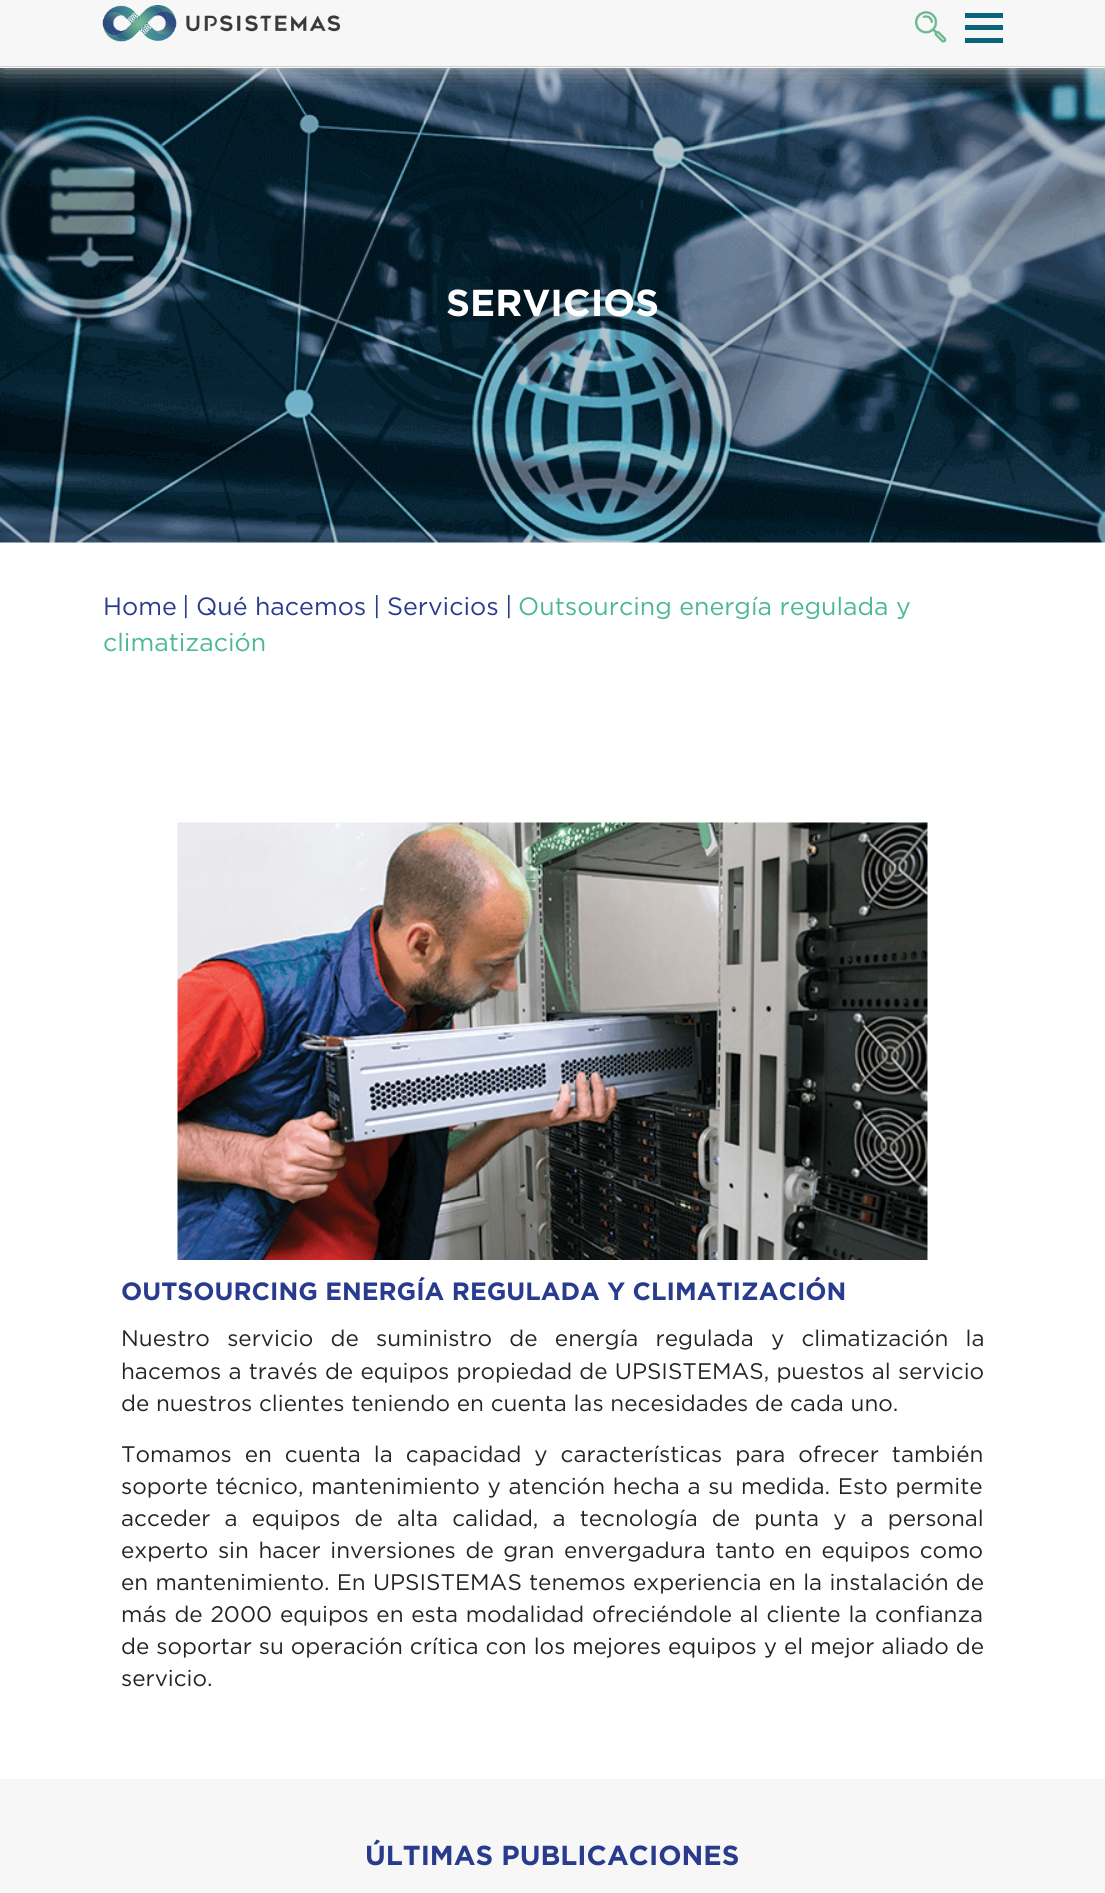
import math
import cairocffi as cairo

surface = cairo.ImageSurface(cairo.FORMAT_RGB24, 1105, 1893)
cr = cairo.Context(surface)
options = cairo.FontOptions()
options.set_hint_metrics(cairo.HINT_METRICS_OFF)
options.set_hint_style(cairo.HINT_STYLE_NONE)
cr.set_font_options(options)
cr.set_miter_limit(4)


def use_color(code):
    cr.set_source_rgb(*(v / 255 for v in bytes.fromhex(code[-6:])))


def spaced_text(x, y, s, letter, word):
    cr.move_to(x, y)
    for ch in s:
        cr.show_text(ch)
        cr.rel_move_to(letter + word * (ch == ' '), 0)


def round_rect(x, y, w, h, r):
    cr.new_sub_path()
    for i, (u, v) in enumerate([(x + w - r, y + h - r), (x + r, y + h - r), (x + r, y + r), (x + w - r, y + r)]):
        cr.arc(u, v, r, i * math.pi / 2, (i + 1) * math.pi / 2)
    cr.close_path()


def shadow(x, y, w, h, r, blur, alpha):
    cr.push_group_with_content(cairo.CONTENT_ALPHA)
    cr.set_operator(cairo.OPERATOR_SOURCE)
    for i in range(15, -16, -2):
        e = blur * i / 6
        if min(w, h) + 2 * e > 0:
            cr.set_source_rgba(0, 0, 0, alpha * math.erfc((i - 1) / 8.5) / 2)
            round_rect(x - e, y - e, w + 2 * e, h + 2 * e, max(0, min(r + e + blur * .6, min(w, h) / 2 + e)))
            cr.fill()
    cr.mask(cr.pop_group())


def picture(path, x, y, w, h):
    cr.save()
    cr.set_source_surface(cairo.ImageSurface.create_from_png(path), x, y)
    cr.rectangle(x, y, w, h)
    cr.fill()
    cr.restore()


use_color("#ffffff")
cr.paint()
picture("img3.png", 0, 68, 1105, 475)
use_color("#cccccc")
shadow(0, -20, 1105, 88, 0, 12.5, 1)
use_color("#f7f7f7")
cr.rectangle(0, 0, 1105, 68)
cr.fill()
use_color("#d1d1d1")
cr.rectangle(0, 66, 1105, 1)
cr.fill()
picture("img1.png", 102, 5, 238, 37)
picture("img2.png", 915, 11, 32, 32)
use_color("#0b647a")
cr.rectangle(965, 13, 38, 5)
cr.fill()
cr.rectangle(965, 25, 38, 5)
cr.fill()
cr.rectangle(965, 38, 38, 5)
cr.fill()
cr.select_font_face("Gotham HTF", cairo.FONT_SLANT_NORMAL, cairo.FONT_WEIGHT_BOLD)
cr.set_font_size(37.5)
use_color("#ffffff")
cr.move_to(446, 316)
cr.show_text("SERVICIOS")
cr.select_font_face("Gotham HTF")
cr.set_font_size(25)
use_color("#293b8d")
cr.move_to(103, 615)
cr.show_text("Home")
cr.move_to(182, 615)
cr.show_text("|")
cr.move_to(196, 615)
cr.show_text("Qué hacemos")
cr.move_to(373, 615)
cr.show_text("|")
cr.move_to(387, 615)
cr.show_text("Servicios")
cr.move_to(505, 615)
cr.show_text("|")
use_color("#4aba8e")
cr.move_to(518, 615)
cr.show_text("Outsourcing energía regulada y")
cr.move_to(103, 651)
cr.show_text("climatización")
picture("img4.png", 177, 822, 751, 438)
cr.select_font_face("Gotham HTF", cairo.FONT_SLANT_NORMAL, cairo.FONT_WEIGHT_BOLD)
use_color("#293b8d")
cr.move_to(121, 1300)
cr.show_text("OUTSOURCING ENERGÍA REGULADA Y CLIMATIZACIÓN")
cr.select_font_face("Gotham HTF")
cr.set_font_size(22.5)
use_color("#262324")
spaced_text(121, 1346, "Nuestro servicio de suministro de energía regulada y climatización la", 0, 10.5)
spaced_text(121, 1379, "hacemos a través de equipos propiedad de UPSISTEMAS, puestos al servicio", 0, 0.5)
cr.move_to(121, 1411)
cr.show_text("de nuestros clientes teniendo en cuenta las necesidades de cada uno.")
spaced_text(121, 1462, "Tomamos en cuenta la capacidad y características para ofrecer también", 0, 6.25)
spaced_text(121, 1494, "soporte técnico, mantenimiento y atención hecha a su medida. Esto permite", 0, 1)
spaced_text(121, 1526, "acceder a equipos de alta calidad, a tecnología de punta y a personal", 0, 7.4)
spaced_text(121, 1558, "experto sin hacer inversiones de gran envergadura tanto en equipos como", 0, 2.9)
spaced_text(121, 1590, "en mantenimiento. En UPSISTEMAS tenemos experiencia en la instalación de", 0, 0.5)
spaced_text(121, 1622, "más de 2000 equipos en esta modalidad ofreciéndole al cliente la confianza", 0, 1)
spaced_text(121, 1654, "de soportar su operación crítica con los mejores equipos y el mejor aliado de", 0, 0.2)
cr.move_to(121, 1686)
cr.show_text("servicio.")
use_color("#f7f7f7")
cr.rectangle(0, 1779, 1105, 114)
cr.fill()
cr.select_font_face("Gotham HTF", cairo.FONT_SLANT_NORMAL, cairo.FONT_WEIGHT_BOLD)
cr.set_font_size(27.5)
use_color("#293b8d")
cr.move_to(365, 1865)
cr.show_text("ÚLTIMAS PUBLICACIONES")
surface.write_to_png("result.png")
